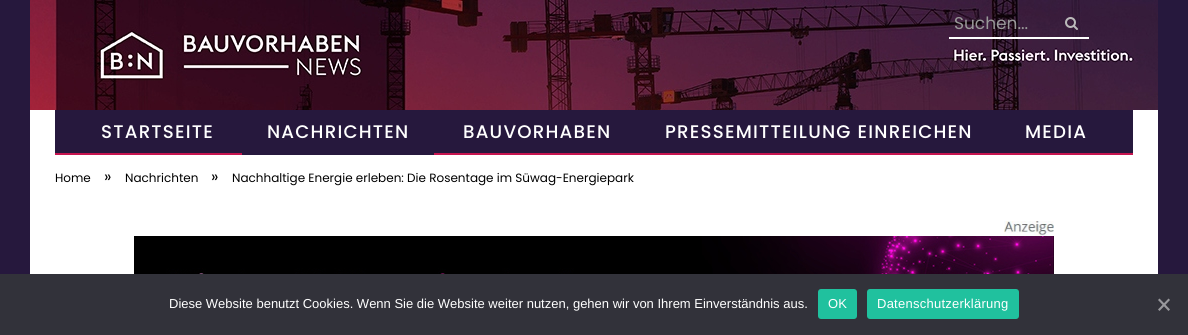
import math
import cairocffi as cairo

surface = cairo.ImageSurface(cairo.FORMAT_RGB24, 1188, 335)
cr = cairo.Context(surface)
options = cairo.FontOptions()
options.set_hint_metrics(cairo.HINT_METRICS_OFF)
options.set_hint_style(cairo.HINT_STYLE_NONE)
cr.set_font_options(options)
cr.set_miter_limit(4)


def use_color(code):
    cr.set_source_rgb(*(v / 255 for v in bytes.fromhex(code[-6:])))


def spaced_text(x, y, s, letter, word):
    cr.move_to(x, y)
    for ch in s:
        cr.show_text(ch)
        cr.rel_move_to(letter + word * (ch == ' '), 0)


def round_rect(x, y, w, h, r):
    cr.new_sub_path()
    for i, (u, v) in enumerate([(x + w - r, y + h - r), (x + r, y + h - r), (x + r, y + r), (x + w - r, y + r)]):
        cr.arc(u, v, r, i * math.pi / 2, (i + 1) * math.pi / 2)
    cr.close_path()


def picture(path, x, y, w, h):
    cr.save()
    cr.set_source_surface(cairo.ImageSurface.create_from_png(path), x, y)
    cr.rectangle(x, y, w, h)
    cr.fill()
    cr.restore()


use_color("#26183d")
cr.paint()
use_color("#ffffff")
cr.rectangle(30, 110, 1128, 164)
cr.fill()
picture("img1.png", 30, 0, 1128, 110)
cr.rectangle(949, 37, 140, 2)
cr.fill()
cr.select_font_face("Poppins")
cr.set_font_size(17)
use_color("#999999")
cr.move_to(954, 29)
cr.show_text("Suchen...")
picture("img2.png", 1065, 17, 13, 13)
use_color("#26183d")
cr.rectangle(55, 110, 1078, 43)
cr.fill()
use_color("#c6144f")
cr.rectangle(55, 153, 1078, 2)
cr.fill()
cr.select_font_face("Poppins Medium")
cr.set_font_size(18.25)
use_color("#ffffff")
spaced_text(101, 138, "STARTSEITE", 1.2, 0)
use_color("#26183d")
cr.rectangle(242, 153, 192, 2)
cr.fill()
use_color("#ffffff")
spaced_text(267, 138, "NACHRICHTEN", 1.2, 0)
spaced_text(463, 138, "BAUVORHABEN", 1.2, 0)
spaced_text(665, 138, "PRESSEMITTEILUNG EINREICHEN", 1.2, 0)
spaced_text(1025, 138, "MEDIA", 1.2, 0)
cr.select_font_face("Poppins")
cr.set_font_size(12)
use_color("#000000")
cr.move_to(55, 182)
cr.show_text("Home")
cr.set_font_size(16)
cr.move_to(104, 182)
cr.show_text("»")
cr.set_font_size(12)
cr.move_to(125, 182)
cr.show_text("Nachrichten")
cr.set_font_size(16)
cr.move_to(211, 182)
cr.show_text("»")
cr.set_font_size(12)
cr.move_to(232, 182)
cr.show_text("Nachhaltige Energie erleben: Die Rosentage im Süwag-Energiepark")
picture("img3.png", 1004, 221, 50, 15)
picture("img4.png", 134, 236, 920, 38)
use_color("#32323a")
cr.rectangle(0, 274, 1188, 61)
cr.fill()
cr.select_font_face("Liberation Sans")
cr.set_font_size(13)
use_color("#ffffff")
cr.move_to(169, 308)
cr.show_text("Diese Website benutzt Cookies. Wenn Sie die Website weiter nutzen, gehen wir von Ihrem Einverständnis aus.")
use_color("#20c19e")
round_rect(818, 289, 39, 30, 3)
cr.fill()
use_color("#ffffff")
spaced_text(828, 308, "OK", 0.25, 0)
use_color("#20c19e")
round_rect(867, 289, 152, 30, 3)
cr.fill()
use_color("#ffffff")
spaced_text(877, 308, "Datenschutzerklärung", 0.25, 0)
use_color("#99999d")
cr.new_path()
cr.move_to(1168.5, 298.5)
cr.line_to(1170, 300)
cr.line_to(1159.5, 311)
cr.line_to(1158, 309.5)
cr.close_path()
cr.fill()
cr.new_path()
cr.move_to(1158, 300)
cr.line_to(1159.5, 298.5)
cr.line_to(1170, 309.5)
cr.line_to(1168.5, 311)
cr.close_path()
cr.fill()
surface.write_to_png("result.png")
